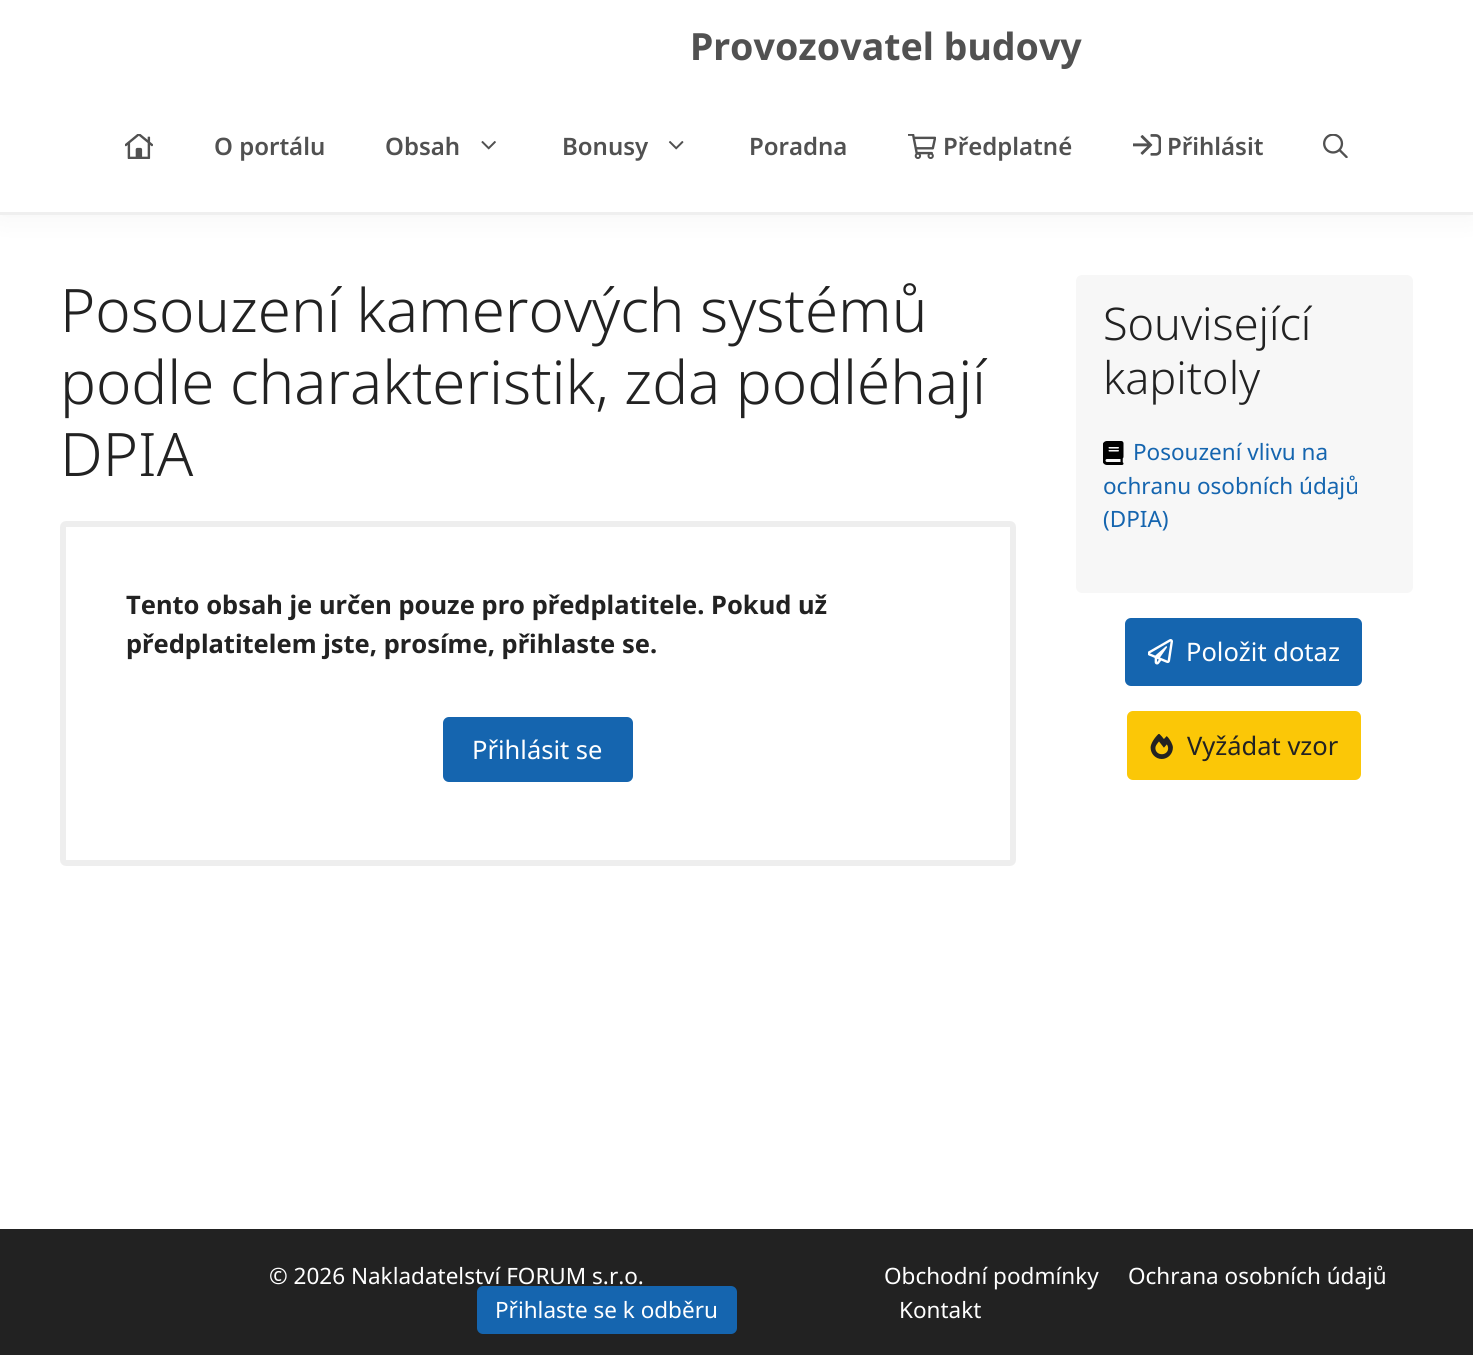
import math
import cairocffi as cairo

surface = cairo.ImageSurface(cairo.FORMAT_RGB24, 1473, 1355)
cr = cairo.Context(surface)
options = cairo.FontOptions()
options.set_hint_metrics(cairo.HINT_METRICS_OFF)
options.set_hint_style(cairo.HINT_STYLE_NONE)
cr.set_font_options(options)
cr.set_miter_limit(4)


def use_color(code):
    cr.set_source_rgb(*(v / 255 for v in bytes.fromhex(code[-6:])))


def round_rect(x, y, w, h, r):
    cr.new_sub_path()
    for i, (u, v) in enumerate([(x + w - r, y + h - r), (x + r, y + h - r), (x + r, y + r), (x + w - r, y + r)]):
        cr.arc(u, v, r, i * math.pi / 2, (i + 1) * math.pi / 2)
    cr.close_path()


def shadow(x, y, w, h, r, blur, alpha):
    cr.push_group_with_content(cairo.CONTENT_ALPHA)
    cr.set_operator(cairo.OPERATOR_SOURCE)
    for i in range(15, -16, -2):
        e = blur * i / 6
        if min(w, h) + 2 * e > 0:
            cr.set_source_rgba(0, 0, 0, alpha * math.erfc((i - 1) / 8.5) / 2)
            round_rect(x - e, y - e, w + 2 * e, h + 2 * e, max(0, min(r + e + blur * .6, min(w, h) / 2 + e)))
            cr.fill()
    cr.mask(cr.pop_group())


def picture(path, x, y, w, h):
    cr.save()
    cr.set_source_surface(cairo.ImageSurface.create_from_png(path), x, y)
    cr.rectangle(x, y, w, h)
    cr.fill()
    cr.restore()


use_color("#ffffff")
cr.paint()
use_color("#000000")
shadow(0, 0, 1473, 215, 0, 15, 0.05)
use_color("#ffffff")
cr.rectangle(0, 0, 1473, 212)
cr.fill()
use_color("#efefef")
cr.rectangle(0, 212, 1473, 3)
cr.fill()
cr.select_font_face("Noto Sans", cairo.FONT_SLANT_NORMAL, cairo.FONT_WEIGHT_BOLD)
cr.set_font_size(37.5)
use_color("#515151")
cr.move_to(690, 60)
cr.show_text("Provozovatel budovy")
picture("img1.png", 125, 134, 28, 25)
cr.select_font_face("Noto Sans SemiBold")
cr.set_font_size(24)
cr.move_to(214, 155)
cr.show_text("O portálu")
cr.move_to(385, 155)
cr.show_text("Obsah")
picture("img2.png", 481, 141, 15, 9)
cr.move_to(562, 155)
cr.show_text("Bonusy")
picture("img3.png", 668, 141, 16, 9)
cr.move_to(749, 155)
cr.show_text("Poradna")
picture("img4.png", 908, 134, 28, 25)
cr.move_to(943, 155)
cr.show_text("Předplatné")
picture("img5.png", 1133, 134, 28, 22)
cr.move_to(1167, 155)
cr.show_text("Přihlásit")
picture("img6.png", 1323, 134, 25, 24)
cr.select_font_face("Noto Sans Light")
cr.set_font_size(60)
use_color("#222222")
cr.move_to(60, 332)
cr.show_text("Posouzení kamerových systémů")
cr.move_to(60, 404)
cr.show_text("podle charakteristik, zda podléhají")
cr.move_to(60, 476)
cr.show_text("DPIA")
round_rect(63, 524, 950, 339, 3)
use_color("#eeeeee")
cr.set_line_width(6)
cr.stroke()
cr.select_font_face("Noto Sans", cairo.FONT_SLANT_NORMAL, cairo.FONT_WEIGHT_BOLD)
cr.set_font_size(25.5)
use_color("#222222")
cr.move_to(126, 614)
cr.show_text("Tento obsah je určen pouze pro předplatitele. Pokud už")
cr.move_to(126, 653)
cr.show_text("předplatitelem jste, prosíme, přihlaste se.")
use_color("#1565af")
round_rect(443, 717, 190, 65, 6)
cr.fill()
cr.select_font_face("Noto Sans")
use_color("#ffffff")
cr.move_to(472, 759)
cr.show_text("Přihlásit se")
use_color("#f7f7f7")
round_rect(1076, 275, 337, 318, 6)
cr.fill()
cr.select_font_face("Noto Sans Light")
cr.set_font_size(45)
use_color("#222222")
cr.move_to(1103, 340)
cr.show_text("Související")
cr.move_to(1103, 394)
cr.show_text("kapitoly")
picture("img7.png", 1103, 441, 21, 24)
cr.select_font_face("Noto Sans")
cr.set_font_size(22.5)
use_color("#1565af")
cr.move_to(1133, 460)
cr.show_text("Posouzení vlivu na")
cr.move_to(1103, 494)
cr.show_text("ochranu osobních údajů")
cr.move_to(1103, 527)
cr.show_text("(DPIA)")
round_rect(1125, 618, 237, 68, 6)
cr.fill()
picture("img8.png", 1148, 639, 25, 26)
cr.set_font_size(25.5)
use_color("#ffffff")
cr.move_to(1186, 661)
cr.show_text("Položit dotaz")
use_color("#fbc707")
round_rect(1127, 711, 234, 69, 6)
cr.fill()
picture("img9.png", 1150, 734, 23, 25)
use_color("#222222")
cr.move_to(1187, 755)
cr.show_text("Vyžádat vzor")
cr.rectangle(0, 1229, 1473, 126)
cr.fill()
cr.set_font_size(22.5)
use_color("#ffffff")
cr.move_to(269, 1284)
cr.show_text("© 2026 Nakladatelství FORUM s.r.o.")
use_color("#1565af")
round_rect(477, 1286, 260, 48, 6)
cr.fill()
use_color("#ffffff")
cr.move_to(495, 1318)
cr.show_text("Přihlaste se k odběru")
cr.move_to(884, 1284)
cr.show_text("Obchodní podmínky")
cr.move_to(1128, 1284)
cr.show_text("Ochrana osobních údajů")
cr.move_to(899, 1318)
cr.show_text("Kontakt")
surface.write_to_png("result.png")
